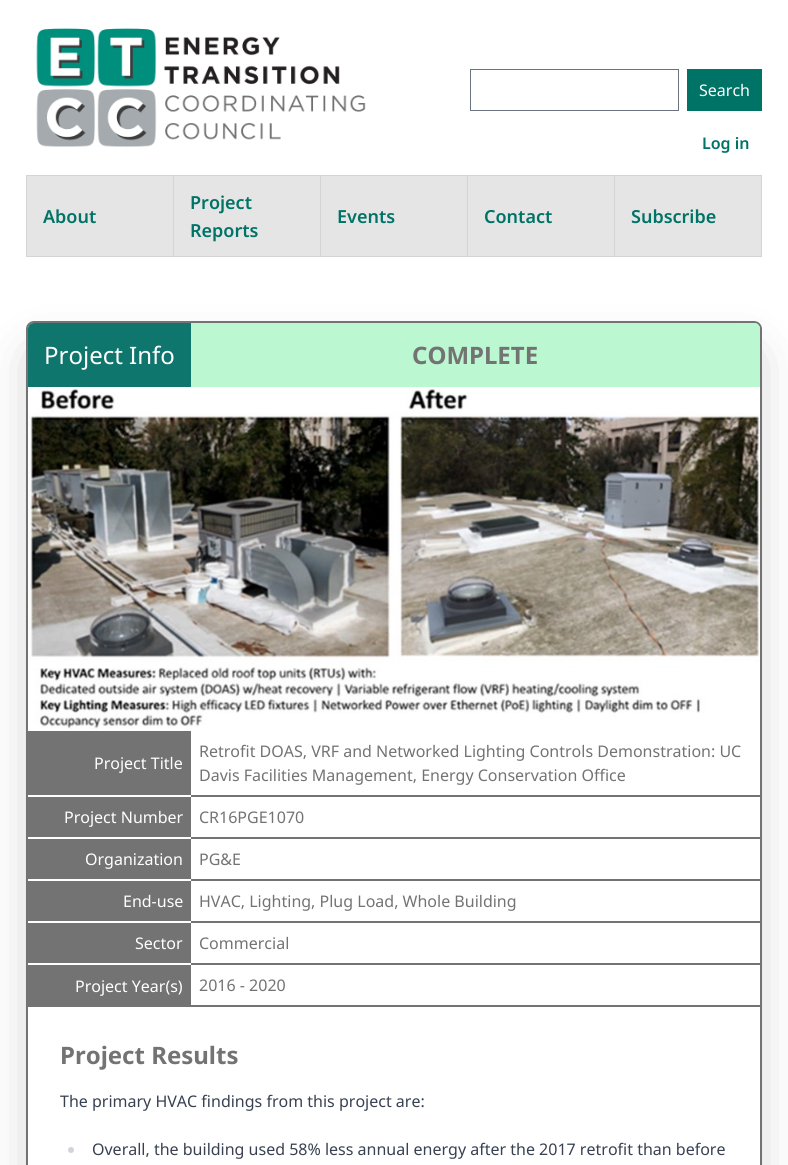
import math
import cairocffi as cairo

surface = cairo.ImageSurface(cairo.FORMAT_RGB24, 788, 1165)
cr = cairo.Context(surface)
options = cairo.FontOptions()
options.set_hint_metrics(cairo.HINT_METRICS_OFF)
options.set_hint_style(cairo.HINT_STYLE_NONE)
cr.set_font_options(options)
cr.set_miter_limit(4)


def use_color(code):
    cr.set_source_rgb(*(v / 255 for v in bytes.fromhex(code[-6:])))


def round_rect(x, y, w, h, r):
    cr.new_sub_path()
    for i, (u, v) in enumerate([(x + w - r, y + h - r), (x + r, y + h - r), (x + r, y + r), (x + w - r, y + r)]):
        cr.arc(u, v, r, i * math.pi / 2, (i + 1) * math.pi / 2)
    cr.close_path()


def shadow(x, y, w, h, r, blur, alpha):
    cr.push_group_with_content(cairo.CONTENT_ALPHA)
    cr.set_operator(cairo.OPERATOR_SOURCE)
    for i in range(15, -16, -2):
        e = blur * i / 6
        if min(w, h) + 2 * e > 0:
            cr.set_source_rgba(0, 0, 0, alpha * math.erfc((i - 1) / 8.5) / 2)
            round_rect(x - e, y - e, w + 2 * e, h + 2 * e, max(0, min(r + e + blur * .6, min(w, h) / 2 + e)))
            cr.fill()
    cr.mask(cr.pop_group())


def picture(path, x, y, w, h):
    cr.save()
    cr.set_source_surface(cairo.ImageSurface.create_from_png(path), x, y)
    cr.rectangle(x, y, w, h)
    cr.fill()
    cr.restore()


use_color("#ffffff")
cr.paint()
picture("img1.png", 36, 28, 330, 119)
cr.rectangle(470.5, 69.5, 208, 41)
use_color("#6b7280")
cr.set_line_width(1)
cr.stroke()
use_color("#007367")
cr.rectangle(687, 69, 75, 42)
cr.fill()
cr.select_font_face("Noto Sans")
cr.set_font_size(16)
use_color("#ffffff")
cr.move_to(699, 96)
cr.show_text("Search")
cr.select_font_face("Noto Sans SemiBold")
use_color("#007367")
cr.move_to(702, 149)
cr.show_text("Log in")
cr.rectangle(26.5, 175.5, 735, 81)
use_color("#d4d4d4")
cr.stroke()
use_color("#e5e5e5")
cr.rectangle(27, 176, 146, 80)
cr.fill()
cr.set_font_size(18)
use_color("#007367")
cr.move_to(43, 223)
cr.show_text("About")
use_color("#e5e5e5")
cr.rectangle(174, 176, 146, 80)
cr.fill()
use_color("#d4d4d4")
cr.rectangle(173, 176, 1, 80)
cr.fill()
use_color("#007367")
cr.move_to(190, 209)
cr.show_text("Project")
cr.move_to(190, 237)
cr.show_text("Reports")
use_color("#e5e5e5")
cr.rectangle(321, 176, 146, 80)
cr.fill()
use_color("#d4d4d4")
cr.rectangle(320, 176, 1, 80)
cr.fill()
use_color("#007367")
cr.move_to(337, 223)
cr.show_text("Events")
use_color("#e5e5e5")
cr.rectangle(468, 176, 146, 80)
cr.fill()
use_color("#d4d4d4")
cr.rectangle(467, 176, 1, 80)
cr.fill()
use_color("#007367")
cr.move_to(484, 223)
cr.show_text("Contact")
use_color("#e5e5e5")
cr.rectangle(615, 176, 146, 80)
cr.fill()
use_color("#d4d4d4")
cr.rectangle(614, 176, 1, 80)
cr.fill()
use_color("#007367")
cr.move_to(631, 223)
cr.show_text("Subscribe")
cr.save()
cr.set_fill_rule(cairo.FILL_RULE_EVEN_ODD)
cr.new_path()
cr.move_to(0, 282)
cr.line_to(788, 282)
cr.line_to(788, 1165)
cr.line_to(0, 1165)
cr.close_path()
cr.move_to(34, 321)
cr.line_to(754, 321)
cr.curve_to(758.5, 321, 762, 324.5, 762, 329)
cr.line_to(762, 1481)
cr.curve_to(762, 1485.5, 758.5, 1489, 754, 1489)
cr.line_to(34, 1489)
cr.curve_to(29.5, 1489, 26, 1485.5, 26, 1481)
cr.line_to(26, 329)
cr.curve_to(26, 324.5, 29.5, 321, 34, 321)
cr.close_path()
cr.clip()
use_color("#000000")
shadow(38, 358, 712, 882, 0, 25, 0.25)
cr.restore()
round_rect(27, 322, 734, 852, 7)
use_color("#737373")
cr.set_line_width(2)
cr.stroke()
use_color("#0f766e")
cr.new_path()
cr.move_to(34, 323)
cr.line_to(191, 323)
cr.line_to(191, 387)
cr.line_to(28, 387)
cr.line_to(28, 329)
cr.curve_to(28, 325.5, 30.5, 323, 34, 323)
cr.close_path()
cr.fill()
cr.select_font_face("Noto Sans")
cr.set_font_size(24)
use_color("#ffffff")
cr.move_to(44, 364)
cr.show_text("Project Info")
use_color("#bbf7d0")
cr.new_path()
cr.move_to(191, 323)
cr.line_to(754, 323)
cr.curve_to(757.5, 323, 760, 325.5, 760, 329)
cr.line_to(760, 387)
cr.line_to(191, 387)
cr.close_path()
cr.fill()
cr.select_font_face("Noto Sans", cairo.FONT_SLANT_NORMAL, cairo.FONT_WEIGHT_BOLD)
use_color("#737373")
cr.move_to(412, 364)
cr.show_text("COMPLETE")
picture("img2.png", 28, 388, 732, 341)
cr.rectangle(28, 731, 163, 64)
cr.fill()
cr.select_font_face("Noto Sans")
cr.set_font_size(16)
use_color("#ffffff")
cr.move_to(94, 769)
cr.show_text("Project Title")
use_color("#737373")
cr.rectangle(191, 795, 569, 2)
cr.fill()
cr.move_to(199, 757)
cr.show_text("Retrofit DOAS, VRF and Networked Lighting Controls Demonstration: UC")
cr.move_to(199, 781)
cr.show_text("Davis Facilities Management, Energy Conservation Office")
cr.rectangle(28, 797, 163, 40)
cr.fill()
use_color("#ffffff")
cr.move_to(64, 823)
cr.show_text("Project Number")
use_color("#737373")
cr.rectangle(191, 837, 569, 2)
cr.fill()
cr.move_to(199, 823)
cr.show_text("CR16PGE1070")
cr.rectangle(28, 839, 163, 40)
cr.fill()
use_color("#ffffff")
cr.move_to(85, 865)
cr.show_text("Organization")
use_color("#737373")
cr.rectangle(191, 879, 569, 2)
cr.fill()
cr.move_to(199, 865)
cr.show_text("PG&E")
cr.rectangle(28, 881, 163, 40)
cr.fill()
use_color("#ffffff")
cr.move_to(123, 907)
cr.show_text("End-use")
use_color("#737373")
cr.rectangle(191, 921, 569, 2)
cr.fill()
cr.move_to(199, 907)
cr.show_text("HVAC, Lighting, Plug Load, Whole Building")
cr.rectangle(28, 923, 163, 40)
cr.fill()
use_color("#ffffff")
cr.move_to(135, 949)
cr.show_text("Sector")
use_color("#737373")
cr.rectangle(191, 963, 569, 2)
cr.fill()
cr.move_to(199, 949)
cr.show_text("Commercial")
cr.rectangle(28, 965, 163, 42)
cr.fill()
use_color("#ffffff")
cr.move_to(75, 992)
cr.show_text("Project Year(s)")
use_color("#737373")
cr.rectangle(191, 1005, 569, 2)
cr.fill()
cr.move_to(199, 991)
cr.show_text("2016 - 2020")
cr.select_font_face("Noto Sans", cairo.FONT_SLANT_NORMAL, cairo.FONT_WEIGHT_BOLD)
cr.set_font_size(24)
cr.move_to(60, 1064)
cr.show_text("Project Results")
cr.select_font_face("Noto Sans")
cr.set_font_size(16)
use_color("#374151")
cr.move_to(60, 1107)
cr.show_text("The primary HVAC findings from this project are:")
use_color("#d1d5db")
cr.new_path()
cr.arc(71, 1150, 3, 0, 2 * math.pi)
cr.fill()
use_color("#374151")
cr.move_to(92, 1155)
cr.show_text("Overall, the building used 58% less annual energy after the 2017 retrofit than before")
surface.write_to_png("result.png")
